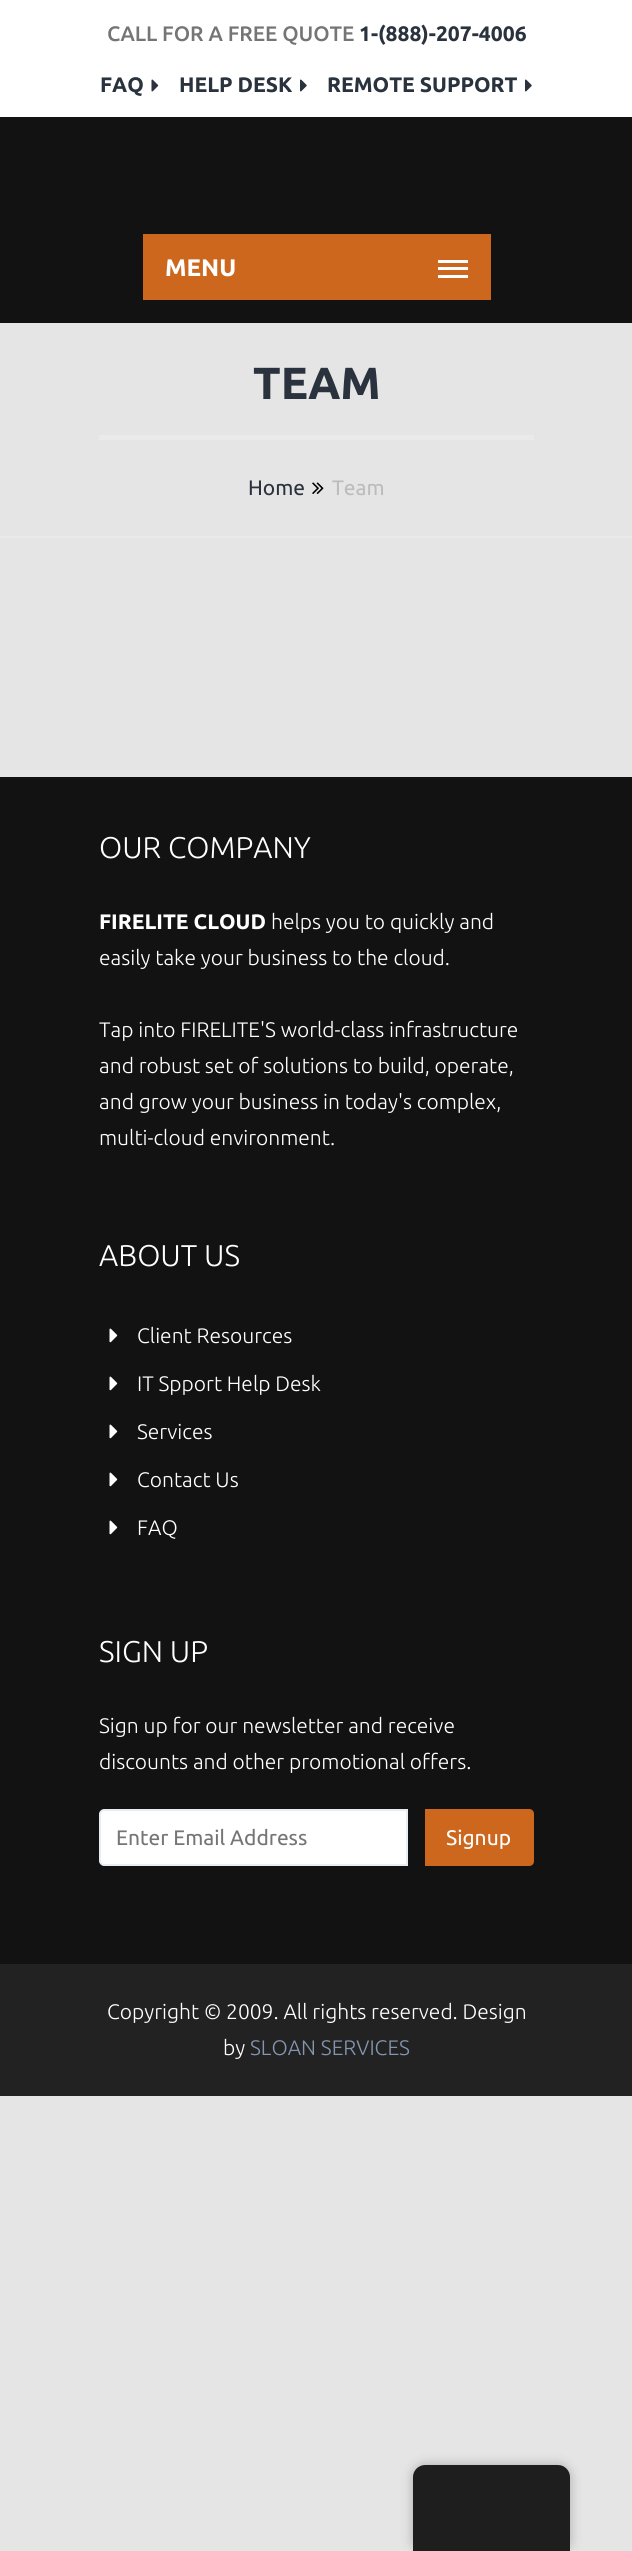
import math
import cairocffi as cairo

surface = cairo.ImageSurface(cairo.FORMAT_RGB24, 632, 2551)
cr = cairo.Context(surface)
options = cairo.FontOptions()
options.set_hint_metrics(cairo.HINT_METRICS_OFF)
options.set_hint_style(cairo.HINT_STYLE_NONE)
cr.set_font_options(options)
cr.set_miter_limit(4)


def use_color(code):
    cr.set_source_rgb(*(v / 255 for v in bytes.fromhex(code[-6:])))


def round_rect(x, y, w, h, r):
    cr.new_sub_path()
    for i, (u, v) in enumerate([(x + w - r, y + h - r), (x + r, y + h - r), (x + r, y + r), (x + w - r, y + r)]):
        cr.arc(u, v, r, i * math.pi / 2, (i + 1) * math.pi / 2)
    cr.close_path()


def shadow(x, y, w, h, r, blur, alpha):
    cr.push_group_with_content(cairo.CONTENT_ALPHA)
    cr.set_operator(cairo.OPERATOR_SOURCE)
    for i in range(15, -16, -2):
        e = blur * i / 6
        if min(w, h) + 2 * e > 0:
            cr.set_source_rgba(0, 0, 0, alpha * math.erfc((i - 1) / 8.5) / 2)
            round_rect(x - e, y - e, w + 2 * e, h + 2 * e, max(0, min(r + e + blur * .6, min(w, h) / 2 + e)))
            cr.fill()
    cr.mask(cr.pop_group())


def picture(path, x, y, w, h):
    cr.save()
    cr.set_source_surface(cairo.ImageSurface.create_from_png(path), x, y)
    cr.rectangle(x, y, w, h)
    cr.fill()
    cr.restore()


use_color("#e5e5e5")
cr.paint()
use_color("#ffffff")
cr.rectangle(0, 0, 632, 117)
cr.fill()
cr.select_font_face("Ubuntu Medium")
cr.set_font_size(21)
use_color("#757575")
cr.move_to(107, 41)
cr.show_text("CALL FOR A FREE QUOTE")
cr.select_font_face("Ubuntu", cairo.FONT_SLANT_NORMAL, cairo.FONT_WEIGHT_BOLD)
use_color("#2a323e")
cr.move_to(359, 41)
cr.show_text("1-(888)-207-4006")
cr.move_to(100, 92)
cr.show_text("FAQ")
picture("img1.png", 151, 79, 8, 13)
cr.move_to(179, 92)
cr.show_text("HELP DESK")
picture("img2.png", 300, 79, 7, 13)
cr.move_to(327, 92)
cr.show_text("REMOTE SUPPORT")
picture("img2.png", 525, 79, 7, 13)
use_color("#121212")
cr.rectangle(0, 117, 632, 206)
cr.fill()
use_color("#cd671d")
cr.rectangle(143, 234, 348, 66)
cr.fill()
cr.set_font_size(24)
use_color("#ffffff")
cr.move_to(165, 276)
cr.show_text("MENU")
cr.rectangle(438, 267, 30, 3)
cr.fill()
cr.rectangle(438, 260, 30, 3)
cr.fill()
cr.rectangle(438, 275, 30, 3)
cr.fill()
use_color("#eaeaea")
cr.rectangle(0, 536, 632, 2)
cr.fill()
cr.rectangle(99, 435, 435, 5)
cr.fill()
cr.set_font_size(45)
use_color("#2a323e")
cr.move_to(253, 399)
cr.show_text("TEAM")
cr.select_font_face("Ubuntu")
cr.set_font_size(21)
cr.move_to(248, 495)
cr.show_text("Home")
picture("img3.png", 312, 482, 12, 12)
use_color("#bcbcbc")
cr.move_to(332, 495)
cr.show_text("Team")
use_color("#121212")
cr.rectangle(0, 777, 632, 1187)
cr.fill()
cr.select_font_face("Ubuntu Light")
cr.set_font_size(30)
use_color("#ffffff")
cr.move_to(99, 858)
cr.show_text("OUR COMPANY")
cr.select_font_face("Ubuntu", cairo.FONT_SLANT_NORMAL, cairo.FONT_WEIGHT_BOLD)
cr.set_font_size(21)
cr.move_to(99, 929)
cr.show_text("FIRELITE CLOUD")
cr.select_font_face("Ubuntu Light")
cr.move_to(271, 929)
cr.show_text("helps you to quickly and")
cr.move_to(99, 965)
cr.show_text("easily take your business to the cloud.")
cr.move_to(99, 1037)
cr.show_text("Tap into FIRELITE'S world-class infrastructure")
cr.move_to(99, 1073)
cr.show_text("and robust set of solutions to build, operate,")
cr.move_to(99, 1109)
cr.show_text("and grow your business in today's complex,")
cr.move_to(99, 1145)
cr.show_text("multi-cloud environment.")
cr.set_font_size(30)
cr.move_to(99, 1266)
cr.show_text("ABOUT US")
picture("img4.png", 109, 1328, 9, 15)
cr.set_font_size(21)
cr.move_to(137, 1343)
cr.show_text("Client Resources")
picture("img4.png", 109, 1376, 9, 15)
cr.move_to(137, 1391)
cr.show_text("IT Spport Help Desk")
picture("img4.png", 109, 1424, 9, 15)
cr.move_to(137, 1439)
cr.show_text("Services")
picture("img4.png", 109, 1472, 9, 15)
cr.move_to(137, 1487)
cr.show_text("Contact Us")
picture("img4.png", 109, 1520, 9, 15)
cr.move_to(137, 1535)
cr.show_text("FAQ")
cr.set_font_size(30)
cr.move_to(99, 1662)
cr.show_text("SIGN UP")
cr.set_font_size(21)
cr.move_to(99, 1733)
cr.show_text("Sign up for our newsletter and receive")
cr.move_to(99, 1769)
cr.show_text("discounts and other promotional offers.")
cr.new_path()
cr.move_to(104, 1810)
cr.line_to(407, 1810)
cr.line_to(407, 1865)
cr.line_to(104, 1865)
cr.curve_to(102, 1865, 100, 1863, 100, 1861)
cr.line_to(100, 1814)
cr.curve_to(100, 1812, 102, 1810, 104, 1810)
cr.close_path()
cr.fill_preserve()
use_color("#e8edf2")
cr.stroke()
cr.select_font_face("Ubuntu")
use_color("#757575")
cr.move_to(116, 1845)
cr.show_text("Enter Email Address")
use_color("#cd671d")
cr.new_path()
cr.move_to(425, 1809)
cr.line_to(529, 1809)
cr.curve_to(532, 1809, 534, 1811, 534, 1814)
cr.line_to(534, 1861)
cr.curve_to(534, 1864, 532, 1866, 529, 1866)
cr.line_to(425, 1866)
cr.close_path()
cr.fill()
use_color("#ffffff")
cr.move_to(446, 1845)
cr.show_text("Signup")
use_color("#222222")
cr.rectangle(0, 1964, 632, 132)
cr.fill()
cr.select_font_face("Ubuntu Light")
use_color("#ffffff")
cr.move_to(107, 2019)
cr.show_text("Copyright © 2009. All rights reserved. Design")
cr.move_to(223, 2055)
cr.show_text("by")
use_color("#8496b0")
cr.move_to(250, 2055)
cr.show_text("SLOAN SERVICES")
use_color("#000000")
shadow(413, 2465, 157, 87, 12, 6, 0.25)
use_color("#1e1e1e")
cr.new_path()
cr.move_to(425, 2465)
cr.line_to(558, 2465)
cr.curve_to(564.5, 2465, 570, 2470.5, 570, 2477)
cr.line_to(570, 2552)
cr.line_to(413, 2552)
cr.line_to(413, 2477)
cr.curve_to(413, 2470.5, 418.5, 2465, 425, 2465)
cr.close_path()
cr.fill()
surface.write_to_png("result.png")
